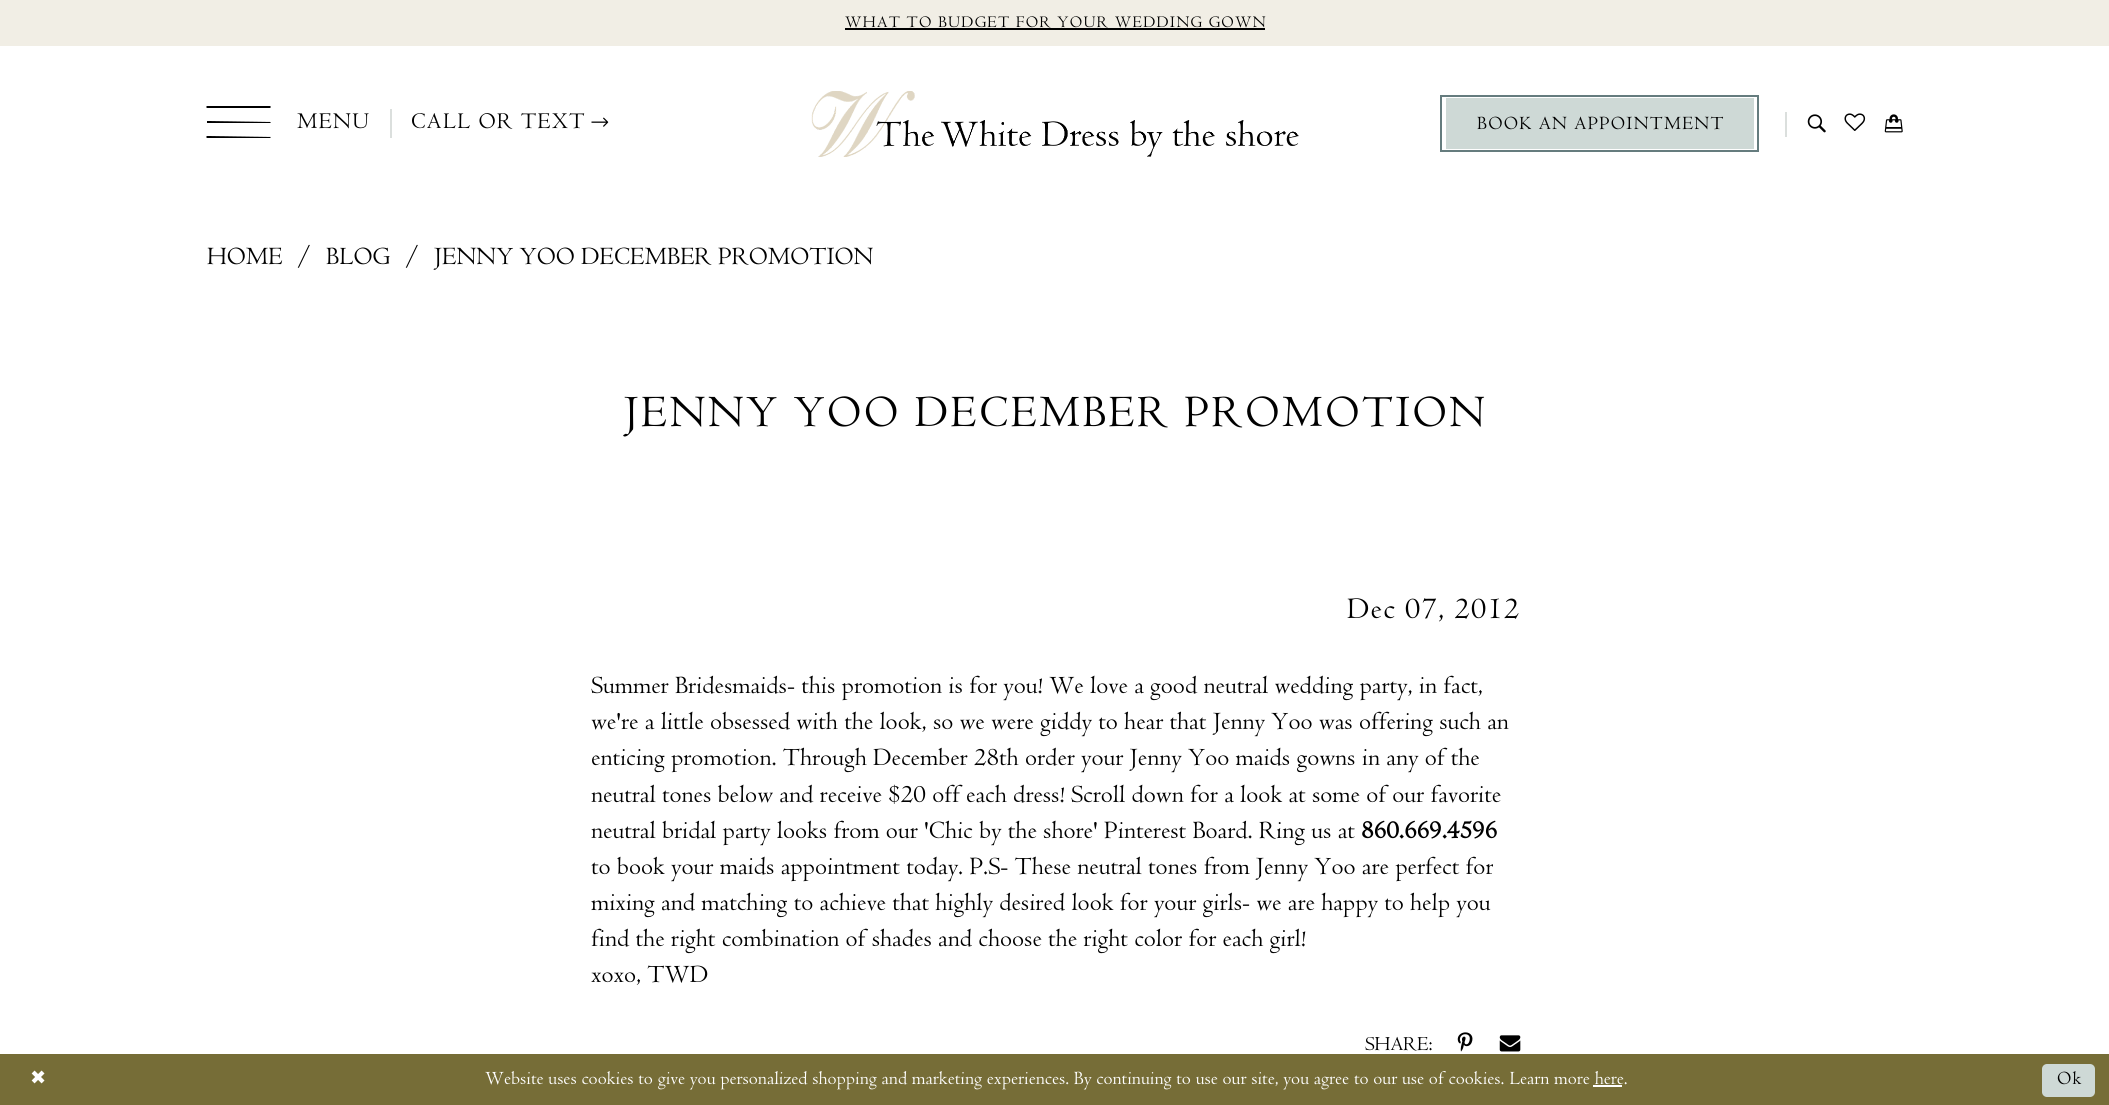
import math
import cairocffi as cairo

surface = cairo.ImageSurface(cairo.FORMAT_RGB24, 2109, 1105)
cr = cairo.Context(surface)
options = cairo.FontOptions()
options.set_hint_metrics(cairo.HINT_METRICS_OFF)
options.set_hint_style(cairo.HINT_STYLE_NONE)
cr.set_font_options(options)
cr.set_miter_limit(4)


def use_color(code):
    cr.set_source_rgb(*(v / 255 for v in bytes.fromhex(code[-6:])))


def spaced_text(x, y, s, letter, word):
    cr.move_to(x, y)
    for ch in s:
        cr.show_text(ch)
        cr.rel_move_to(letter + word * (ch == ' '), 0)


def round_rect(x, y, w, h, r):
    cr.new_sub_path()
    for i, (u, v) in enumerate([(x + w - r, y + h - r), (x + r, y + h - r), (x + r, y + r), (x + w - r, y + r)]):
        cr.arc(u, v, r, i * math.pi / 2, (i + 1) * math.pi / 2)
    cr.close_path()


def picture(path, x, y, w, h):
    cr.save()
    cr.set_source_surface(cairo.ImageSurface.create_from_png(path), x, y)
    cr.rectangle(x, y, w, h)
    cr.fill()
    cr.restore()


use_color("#ffffff")
cr.paint()
use_color("#f1eee5")
cr.rectangle(0, 0, 2109, 46)
cr.fill()
cr.select_font_face("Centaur")
cr.set_font_size(16.75)
use_color("#000000")
spaced_text(845, 27, "WHAT TO BUDGET FOR YOUR WEDDING GOWN", 1.3, 0)
cr.rectangle(845, 28, 420, 2)
cr.fill()
cr.new_path()
cr.move_to(207, 106)
cr.line_to(206, 107)
cr.line_to(207, 108)
cr.line_to(270, 108)
cr.line_to(271, 107)
cr.line_to(270, 106)
cr.close_path()
cr.move_to(207, 121)
cr.line_to(207, 123)
cr.line_to(270, 123)
cr.curve_to(271, 123, 271, 122, 270, 122)
cr.close_path()
cr.move_to(207, 136)
cr.line_to(206, 137)
cr.line_to(207, 138)
cr.line_to(270, 138)
cr.line_to(271, 137)
cr.close_path()
cr.fill()
cr.set_font_size(23.25)
spaced_text(297, 128, "MENU", 1.3, 0)
use_color("#dbdfdd")
cr.rectangle(390, 109, 2, 29)
cr.fill()
use_color("#000000")
spaced_text(411, 128, "CALL OR TEXT", 1.3, 0)
picture("img1.png", 591, 117, 18, 10)
picture("img2.png", 811, 91, 488, 66)
use_color("#ced9d6")
cr.rectangle(1446, 98, 308, 51)
cr.fill()
cr.rectangle(1441, 96, 317, 55)
use_color("#657c7e")
cr.stroke()
cr.set_font_size(19.3)
use_color("#000000")
spaced_text(1477, 129, "BOOK AN APPOINTMENT", 1.3, 0)
use_color("#dbdfdd")
cr.rectangle(1785, 112, 2, 25)
cr.fill()
picture("img3.png", 1807, 114, 19, 19)
picture("img4.png", 1844, 113, 22, 18)
picture("img5.png", 1884, 114, 19, 19)
cr.set_font_size(25.7)
use_color("#000000")
cr.move_to(207, 264)
cr.show_text("HOME")
cr.move_to(297, 264)
cr.show_text("/")
cr.move_to(326, 264)
cr.show_text("BLOG")
cr.move_to(405, 264)
cr.show_text("/")
cr.move_to(434, 264)
cr.show_text("JENNY YOO DECEMBER PROMOTION")
cr.set_font_size(46.25)
spaced_text(624, 426, "JENNY YOO DECEMBER PROMOTION", 2.6, 0)
cr.set_font_size(31)
spaced_text(1347, 618, "Dec 07, 2012", 1.3, 0)
cr.set_font_size(25.7)
cr.move_to(591, 693)
cr.show_text("Summer Bridesmaids- this promotion is for you! We love a good neutral wedding party, in fact,")
cr.move_to(591, 729)
cr.show_text("we're a little obsessed with the look, so we were giddy to hear that")
cr.move_to(1213, 729)
cr.show_text("Jenny Yoo was offering such an")
cr.move_to(591, 765)
cr.show_text("enticing promotion. Through December 28th order your Jenny Yoo maids gowns in any of the")
cr.move_to(591, 802)
cr.show_text("neutral tones below and receive $20 off each dress!")
cr.move_to(1071, 802)
cr.show_text("Scroll down for a look at some of our favorite")
cr.move_to(591, 838)
cr.show_text("neutral bridal party looks from our 'Chic by the shore' Pinterest Board. Ring us at")
cr.select_font_face("Centaur", cairo.FONT_SLANT_NORMAL, cairo.FONT_WEIGHT_BOLD)
cr.move_to(1361, 838)
cr.show_text("860.669.4596")
cr.select_font_face("Centaur")
cr.move_to(591, 874)
cr.show_text("to book your maids appointment today. P.S- These neutral tones from Jenny Yoo are perfect for")
cr.move_to(591, 910)
cr.show_text("mixing and matching to achieve that highly desired look for your girls- we are happy to help you")
cr.move_to(591, 946)
cr.show_text("find the right combination of shades and choose the right color for each girl!")
cr.move_to(591, 982)
cr.show_text("xoxo, TWD")
cr.set_font_size(20.5)
cr.move_to(1365, 1050)
cr.show_text("SHARE:")
picture("img6.png", 1457, 1032, 16, 20)
picture("img7.png", 1499, 1035, 22, 17)
use_color("#766d37")
cr.rectangle(0, 1054, 2109, 51)
cr.fill()
cr.select_font_face("DejaVu Sans")
cr.set_font_size(19.3)
use_color("#ffffff")
spaced_text(30, 1084, "✖", 1.3, 0)
cr.select_font_face("Centaur")
cr.move_to(485, 1084)
cr.show_text("Website uses cookies to give you personalized shopping and marketing experiences. By continuing to use our site, you agree to our use of cookies. Learn more here.")
cr.rectangle(1593, 1085, 29, 2)
cr.fill()
use_color("#ced9d6")
round_rect(2042, 1064, 53, 33, 5)
cr.fill()
use_color("#000000")
spaced_text(2057, 1084, "Ok", 1.3, 0)
surface.write_to_png("result.png")
